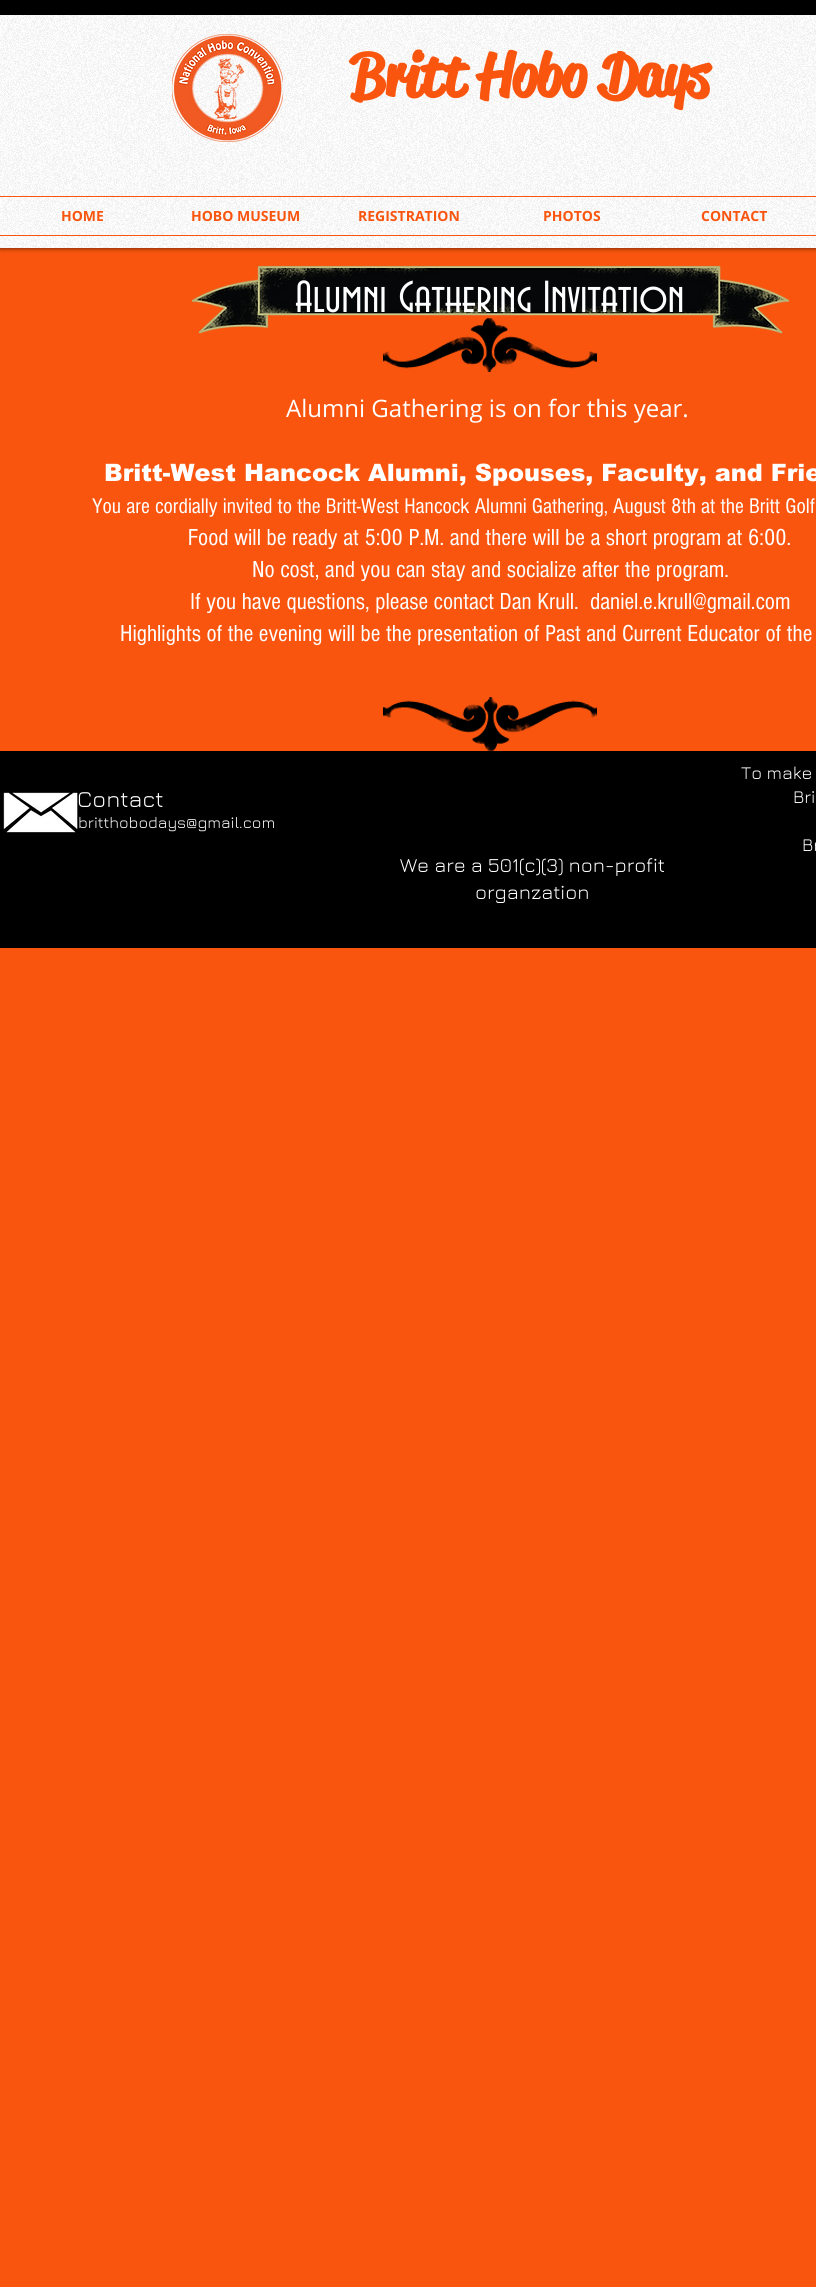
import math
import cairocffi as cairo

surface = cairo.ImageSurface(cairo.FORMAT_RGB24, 816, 2287)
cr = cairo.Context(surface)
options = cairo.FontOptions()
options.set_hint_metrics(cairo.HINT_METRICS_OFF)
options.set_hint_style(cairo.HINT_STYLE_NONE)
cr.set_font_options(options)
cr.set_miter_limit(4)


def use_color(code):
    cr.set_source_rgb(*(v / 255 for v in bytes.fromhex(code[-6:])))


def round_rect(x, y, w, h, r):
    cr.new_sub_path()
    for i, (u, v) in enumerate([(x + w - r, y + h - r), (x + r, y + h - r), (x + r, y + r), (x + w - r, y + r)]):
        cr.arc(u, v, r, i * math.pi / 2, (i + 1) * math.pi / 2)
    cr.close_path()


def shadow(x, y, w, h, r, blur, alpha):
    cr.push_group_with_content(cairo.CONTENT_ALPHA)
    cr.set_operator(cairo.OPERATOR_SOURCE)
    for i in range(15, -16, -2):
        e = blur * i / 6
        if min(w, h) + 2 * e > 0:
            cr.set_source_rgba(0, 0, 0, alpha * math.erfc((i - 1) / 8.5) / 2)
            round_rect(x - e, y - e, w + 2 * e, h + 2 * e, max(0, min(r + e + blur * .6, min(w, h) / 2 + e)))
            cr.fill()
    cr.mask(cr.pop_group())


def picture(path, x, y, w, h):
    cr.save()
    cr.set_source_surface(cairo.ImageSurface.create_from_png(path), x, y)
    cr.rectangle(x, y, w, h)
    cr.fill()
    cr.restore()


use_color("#f9550e")
cr.paint()
use_color("#000000")
shadow(0, 0, 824, 248, 0, 2.5, 0.7)
use_color("#ffffff")
cr.rectangle(0, 15, 816, 233)
cr.fill()
picture("img1.png", 0, 15, 816, 233)
use_color("#000000")
cr.rectangle(0, 0, 816, 15)
cr.fill()
picture("img2.png", 172, 34, 111, 108)
cr.select_font_face("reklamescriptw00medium", cairo.FONT_SLANT_NORMAL, cairo.FONT_WEIGHT_BOLD)
cr.set_font_size(60)
use_color("#f9550e")
cr.move_to(350, 96)
cr.show_text("Britt Hobo Days")
cr.rectangle(0, 196, 816, 1)
cr.fill()
cr.rectangle(0, 235, 816, 1)
cr.fill()
cr.select_font_face("Open Sans", cairo.FONT_SLANT_NORMAL, cairo.FONT_WEIGHT_BOLD)
cr.set_font_size(14)
cr.move_to(61, 221)
cr.show_text("HOME")
cr.move_to(191, 221)
cr.show_text("HOBO MUSEUM")
cr.move_to(358, 221)
cr.show_text("REGISTRATION")
cr.move_to(543, 221)
cr.show_text("PHOTOS")
cr.move_to(701, 221)
cr.show_text("CONTACT")
picture("img3.png", 192, 265, 597, 69)
cr.select_font_face("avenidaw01")
cr.set_font_size(47)
use_color("#ffffff")
cr.move_to(295, 312)
cr.show_text("Alumni Gathering Invitation")
cr.select_font_face("Open Sans")
cr.set_font_size(24)
cr.move_to(286, 417)
cr.show_text("Alumni Gathering is on for this year.")
cr.select_font_face("arial Black")
cr.move_to(104, 481)
cr.show_text("Britt-West Hancock Alumni, Spouses, Faculty, and Frie")
cr.select_font_face("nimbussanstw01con")
cr.set_font_size(22)
cr.move_to(92, 513)
cr.show_text("You are cordially invited to the Britt-West Hancock Alumni Gathering, August 8th at the Britt Golf")
cr.set_font_size(24)
cr.move_to(188, 545)
cr.show_text("Food will be ready at 5:00 P.M. and there will be a short program at 6:00.")
cr.move_to(252, 577)
cr.show_text("No cost, and you can stay and socialize after the program.")
cr.move_to(190, 609)
cr.show_text("If you have questions, please contact Dan Krull.")
cr.move_to(590, 609)
cr.show_text("daniel.e.krull@gmail.com")
cr.move_to(120, 641)
cr.show_text("Highlights of the evening will be the presentation of Past and Current Educator of the")
picture("img4.png", 383, 318, 214, 54)
picture("img5.png", 383, 697, 214, 54)
use_color("#000000")
cr.rectangle(0, 751, 816, 197)
cr.fill()
picture("img6.png", 3, 792, 75, 41)
cr.select_font_face("Jura")
cr.set_font_size(23)
use_color("#ffffff")
cr.move_to(77, 807)
cr.show_text("Contact")
cr.set_font_size(16)
cr.move_to(78, 828)
cr.show_text("britthobodays@gmail.com")
cr.set_font_size(18)
cr.move_to(741, 779)
cr.show_text("To make")
cr.move_to(793, 803)
cr.show_text("Bri")
cr.move_to(802, 851)
cr.show_text("Br")
cr.set_font_size(20)
cr.move_to(400, 872)
cr.show_text("We are a 501(c)(3) non-profit")
cr.move_to(475, 899)
cr.show_text("organzation")
surface.write_to_png("result.png")
